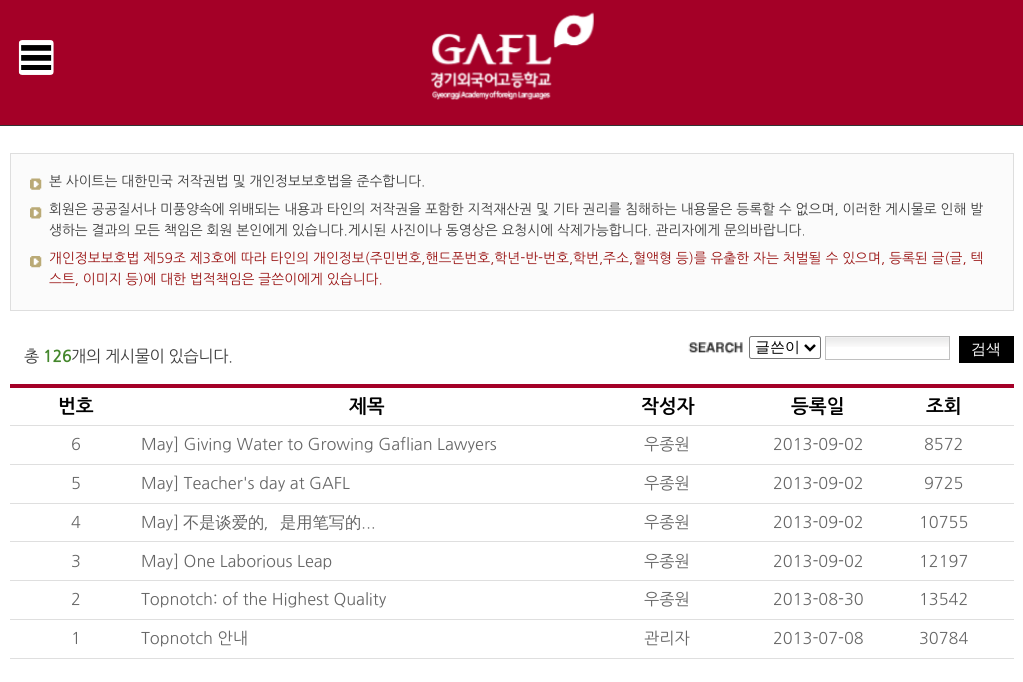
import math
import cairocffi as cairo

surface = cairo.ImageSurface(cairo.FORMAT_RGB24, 1023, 682)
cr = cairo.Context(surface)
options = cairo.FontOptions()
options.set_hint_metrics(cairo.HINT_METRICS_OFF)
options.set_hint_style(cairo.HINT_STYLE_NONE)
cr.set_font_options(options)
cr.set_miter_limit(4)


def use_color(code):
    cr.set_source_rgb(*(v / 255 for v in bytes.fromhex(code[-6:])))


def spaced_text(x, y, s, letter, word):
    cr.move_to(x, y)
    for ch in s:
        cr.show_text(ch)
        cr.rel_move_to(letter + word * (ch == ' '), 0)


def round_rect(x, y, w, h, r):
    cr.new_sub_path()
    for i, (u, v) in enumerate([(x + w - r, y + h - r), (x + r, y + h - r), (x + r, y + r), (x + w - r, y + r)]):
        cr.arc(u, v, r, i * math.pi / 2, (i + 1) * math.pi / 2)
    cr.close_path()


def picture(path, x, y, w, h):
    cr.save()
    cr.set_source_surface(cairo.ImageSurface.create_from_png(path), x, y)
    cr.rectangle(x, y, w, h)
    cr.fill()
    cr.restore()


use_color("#ffffff")
cr.paint()
use_color("#333333")
cr.rectangle(0, 125, 1023, 1)
cr.fill()
use_color("#a40027")
cr.rectangle(0, 0, 1023, 125)
cr.fill()
picture("img1.png", 431, 12, 163, 88)
picture("img2.png", 18, 40, 36, 35)
use_color("#fbfbfb")
cr.rectangle(10.5, 153.5, 1003, 157)
cr.fill_preserve()
use_color("#dedede")
cr.set_line_width(1)
cr.stroke()
picture("img3.png", 30, 178, 12, 12)
cr.select_font_face("NanumGothic")
cr.set_font_size(13.75)
use_color("#3d3d3d")
cr.move_to(49, 186)
cr.show_text("본 사이트는 대한민국 저작권법 및 개인정보보호법을 준수합니다.")
picture("img4.png", 30, 207, 12, 12)
cr.move_to(49, 214)
cr.show_text("회원은 공공질서나 미풍양속에 위배되는 내용과 타인의 저작권을 포함한 지적재산권 및 기타 권리를 침해하는 내용물은 등록할 수 없으며, 이러한 게시물로 인해 발")
cr.move_to(49, 235)
cr.show_text("생하는 결과의 모든 책임은 회원 본인에게 있습니다.게시된 사진이나 동영상은 요청시에 삭제가능합니다. 관리자에게 문의바랍니다.")
picture("img5.png", 30, 256, 12, 12)
use_color("#9a1515")
cr.move_to(49, 263)
cr.show_text("개인정보보호법 제59조 제3호에 따라 타인의 개인정보(주민번호,핸드폰번호,학년-반-번호,학번,주소,혈액형 등)를 유출한 자는 처벌될 수 있으며, 등록된 글(글, 텍")
cr.move_to(49, 284)
cr.show_text("스트, 이미지 등)에 대한 법적책임은 글쓴이에게 있습니다.")
cr.set_font_size(16.25)
use_color("#3d3d3d")
spaced_text(24, 362, "총", -0.4, 0)
cr.select_font_face("NanumGothic", cairo.FONT_SLANT_NORMAL, cairo.FONT_WEIGHT_BOLD)
use_color("#44872c")
spaced_text(43, 362, "126", -0.4, 0)
cr.select_font_face("NanumGothic")
use_color("#3d3d3d")
spaced_text(71, 362, "개의 게시물이 있습니다.", -0.4, 0)
picture("img6.png", 688, 342, 55, 12)
round_rect(749.5, 336.5, 71, 22, 2)
use_color("#767676")
cr.stroke()
cr.new_path()
cr.move_to(805, 345)
cr.line_to(810, 350)
cr.line_to(815, 345)
use_color("#000000")
cr.set_line_width(2.5)
cr.stroke()
cr.select_font_face("WenQuanYi Zen Hei Medium")
cr.set_font_size(15)
cr.move_to(755, 352)
cr.show_text("글쓴이")
picture("img7.png", 826, 337, 123, 10)
cr.rectangle(825.5, 336.5, 124, 23)
use_color("#c0c0c0")
cr.set_line_width(1)
cr.stroke()
use_color("#000000")
cr.rectangle(959, 336, 55, 27)
cr.fill()
use_color("#ffffff")
cr.move_to(971, 354)
cr.show_text("검색")
use_color("#a40027")
cr.rectangle(10, 384, 1004, 4)
cr.fill()
use_color("#dfdfdf")
cr.rectangle(10, 425, 1004, 1)
cr.fill()
cr.select_font_face("NanumGothic", cairo.FONT_SLANT_NORMAL, cairo.FONT_WEIGHT_BOLD)
cr.set_font_size(19)
use_color("#000000")
cr.move_to(58, 413)
cr.show_text("번호")
cr.move_to(349, 413)
cr.show_text("제목")
cr.move_to(641, 413)
cr.show_text("작성자")
cr.move_to(791, 413)
cr.show_text("등록일")
cr.move_to(926, 413)
cr.show_text("조회")
use_color("#dfdfdf")
cr.rectangle(10, 464, 1004, 1)
cr.fill()
cr.select_font_face("NanumGothic")
cr.set_font_size(16.25)
use_color("#666666")
cr.move_to(71, 450)
cr.show_text("6")
cr.move_to(141, 450)
cr.show_text("May] Giving Water to Growing Gaflian Lawyers")
cr.move_to(644, 450)
cr.show_text("우종원")
cr.move_to(773, 450)
cr.show_text("2013-09-02")
cr.move_to(924, 450)
cr.show_text("8572")
use_color("#dfdfdf")
cr.rectangle(10, 503, 1004, 1)
cr.fill()
use_color("#666666")
cr.move_to(71, 489)
cr.show_text("5")
cr.move_to(141, 489)
cr.show_text("May] Teacher's day at GAFL")
cr.move_to(644, 489)
cr.show_text("우종원")
cr.move_to(773, 489)
cr.show_text("2013-09-02")
cr.move_to(924, 489)
cr.show_text("9725")
use_color("#dfdfdf")
cr.rectangle(10, 541, 1004, 1)
cr.fill()
use_color("#666666")
cr.move_to(71, 528)
cr.show_text("4")
cr.move_to(141, 528)
cr.show_text("May]")
cr.select_font_face("WenQuanYi Zen Hei Medium")
cr.move_to(183, 528)
cr.show_text("不是谈爱的")
cr.select_font_face("NanumGothic")
cr.move_to(264, 528)
cr.show_text("，")
cr.select_font_face("WenQuanYi Zen Hei Medium")
cr.move_to(280, 528)
cr.show_text("是用笔写的")
cr.select_font_face("NanumGothic")
cr.move_to(361, 528)
cr.show_text("...")
cr.move_to(644, 528)
cr.show_text("우종원")
cr.move_to(773, 528)
cr.show_text("2013-09-02")
cr.move_to(919, 528)
cr.show_text("10755")
use_color("#dfdfdf")
cr.rectangle(10, 580, 1004, 1)
cr.fill()
use_color("#666666")
cr.move_to(71, 567)
cr.show_text("3")
cr.move_to(141, 567)
cr.show_text("May] One Laborious Leap")
cr.move_to(644, 567)
cr.show_text("우종원")
cr.move_to(773, 567)
cr.show_text("2013-09-02")
cr.move_to(919, 567)
cr.show_text("12197")
use_color("#dfdfdf")
cr.rectangle(10, 619, 1004, 1)
cr.fill()
use_color("#666666")
cr.move_to(71, 605)
cr.show_text("2")
cr.move_to(141, 605)
cr.show_text("Topnotch: of the Highest Quality")
cr.move_to(644, 605)
cr.show_text("우종원")
cr.move_to(773, 605)
cr.show_text("2013-08-30")
cr.move_to(919, 605)
cr.show_text("13542")
use_color("#dfdfdf")
cr.rectangle(10, 658, 1004, 1)
cr.fill()
use_color("#666666")
cr.move_to(71, 644)
cr.show_text("1")
cr.move_to(141, 644)
cr.show_text("Topnotch 안내")
cr.move_to(644, 644)
cr.show_text("관리자")
cr.move_to(773, 644)
cr.show_text("2013-07-08")
cr.move_to(919, 644)
cr.show_text("30784")
surface.write_to_png("result.png")
